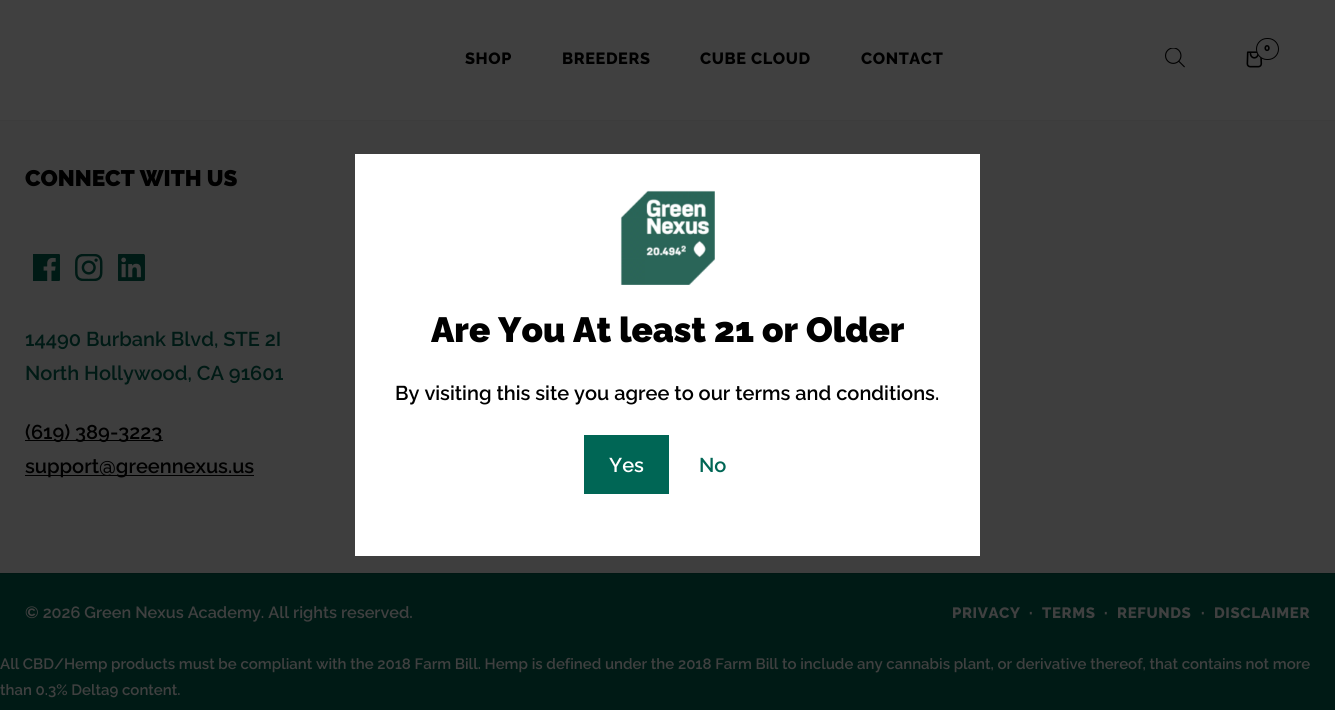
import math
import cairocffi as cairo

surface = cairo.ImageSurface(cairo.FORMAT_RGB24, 1335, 710)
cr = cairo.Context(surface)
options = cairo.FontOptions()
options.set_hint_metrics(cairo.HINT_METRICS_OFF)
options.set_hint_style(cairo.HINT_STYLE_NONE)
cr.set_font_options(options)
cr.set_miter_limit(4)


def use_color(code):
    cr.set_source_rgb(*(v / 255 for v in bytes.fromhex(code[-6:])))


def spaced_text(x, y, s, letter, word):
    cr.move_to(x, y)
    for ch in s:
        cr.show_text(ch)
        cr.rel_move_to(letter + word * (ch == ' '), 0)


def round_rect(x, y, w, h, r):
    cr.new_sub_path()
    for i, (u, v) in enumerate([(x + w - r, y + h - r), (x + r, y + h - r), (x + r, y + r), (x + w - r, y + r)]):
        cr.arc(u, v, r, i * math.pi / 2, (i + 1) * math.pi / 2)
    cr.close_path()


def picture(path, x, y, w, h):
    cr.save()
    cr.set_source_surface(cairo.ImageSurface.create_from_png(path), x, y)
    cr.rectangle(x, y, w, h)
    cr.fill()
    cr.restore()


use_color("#001a15")
cr.paint()
use_color("#404040")
cr.rectangle(0, 0, 1335, 120)
cr.fill()
use_color("#3c3c3c")
cr.rectangle(0, 120, 1335, 1)
cr.fill()
cr.select_font_face("Raleway Thin")
cr.set_font_size(16.25)
use_color("#000000")
spaced_text(465, 64, "SHOP", 0.6, 0)
spaced_text(562, 64, "BREEDERS", 0.6, 0)
spaced_text(700, 64, "CUBE CLOUD", 0.6, 0)
spaced_text(861, 64, "CONTACT", 0.6, 0)
picture("img1.png", 1165, 48, 20, 20)
picture("img2.png", 1246, 51, 17, 17)
use_color("#404040")
round_rect(1256.5, 38.5, 22, 21, 10.5)
cr.fill_preserve()
use_color("#000000")
cr.set_line_width(1)
cr.stroke()
cr.set_font_size(10)
spaced_text(1264, 51, "0", 0.6, 0)
use_color("#3e3e3e")
cr.rectangle(0, 121, 1335, 452)
cr.fill()
cr.select_font_face("Raleway Black")
cr.set_font_size(22.5)
use_color("#000000")
cr.move_to(25, 186)
cr.show_text("CONNECT WITH US")
picture("img3.png", 33, 254, 27, 27)
picture("img4.png", 75, 254, 28, 27)
picture("img5.png", 118, 254, 27, 27)
cr.select_font_face("Raleway SemiBold")
cr.set_font_size(20)
use_color("#001a15")
cr.move_to(25, 346)
cr.show_text("14490 Burbank Blvd, STE 2I")
cr.move_to(25, 380)
cr.show_text("North Hollywood, CA 91601")
use_color("#000000")
cr.rectangle(25, 440, 138, 1)
cr.fill()
cr.move_to(25, 439)
cr.show_text("(619) 389-3223")
cr.rectangle(25, 475, 229, 1)
cr.fill()
cr.move_to(25, 473)
cr.show_text("support@greennexus.us")
use_color("#001713")
cr.rectangle(0, 573, 1335, 1)
cr.fill()
cr.set_font_size(16.25)
use_color("#404040")
cr.move_to(25, 618)
cr.show_text("© 2026 Green Nexus Academy. All rights reserved.")
cr.select_font_face("Raleway Thin")
cr.set_font_size(15)
spaced_text(952, 618, "PRIVACY", 0.6, 0)
spaced_text(1029, 618, "·", 0.6, 0)
spaced_text(1042, 618, "TERMS", 0.6, 0)
spaced_text(1104, 618, "·", 0.6, 0)
spaced_text(1117, 618, "REFUNDS", 0.6, 0)
spaced_text(1201, 618, "·", 0.6, 0)
spaced_text(1214, 618, "DISCLAIMER", 0.6, 0)
cr.select_font_face("Raleway SemiBold")
cr.move_to(0, 669)
cr.show_text("All CBD/Hemp products must be compliant with the 2018 Farm Bill. Hemp is defined under the 2018 Farm Bill to include any cannabis plant, or derivative thereof, that contains not more")
cr.move_to(0, 695)
cr.show_text("than 0.3% Delta9 content.")
use_color("#ffffff")
cr.rectangle(355, 154, 625, 402)
cr.fill()
picture("img6.png", 620, 190, 95, 95)
cr.select_font_face("Raleway Black")
cr.set_font_size(35)
use_color("#000000")
cr.move_to(431, 342)
cr.show_text("Are You At least 21 or Older")
cr.select_font_face("Raleway SemiBold")
cr.set_font_size(20)
cr.move_to(395, 400)
cr.show_text("By visiting this site you agree to our terms and conditions.")
use_color("#006655")
cr.rectangle(584, 435, 85, 59)
cr.fill()
use_color("#ffffff")
cr.move_to(609, 472)
cr.show_text("Yes")
use_color("#006655")
cr.move_to(699, 472)
cr.show_text("No")
surface.write_to_png("result.png")
